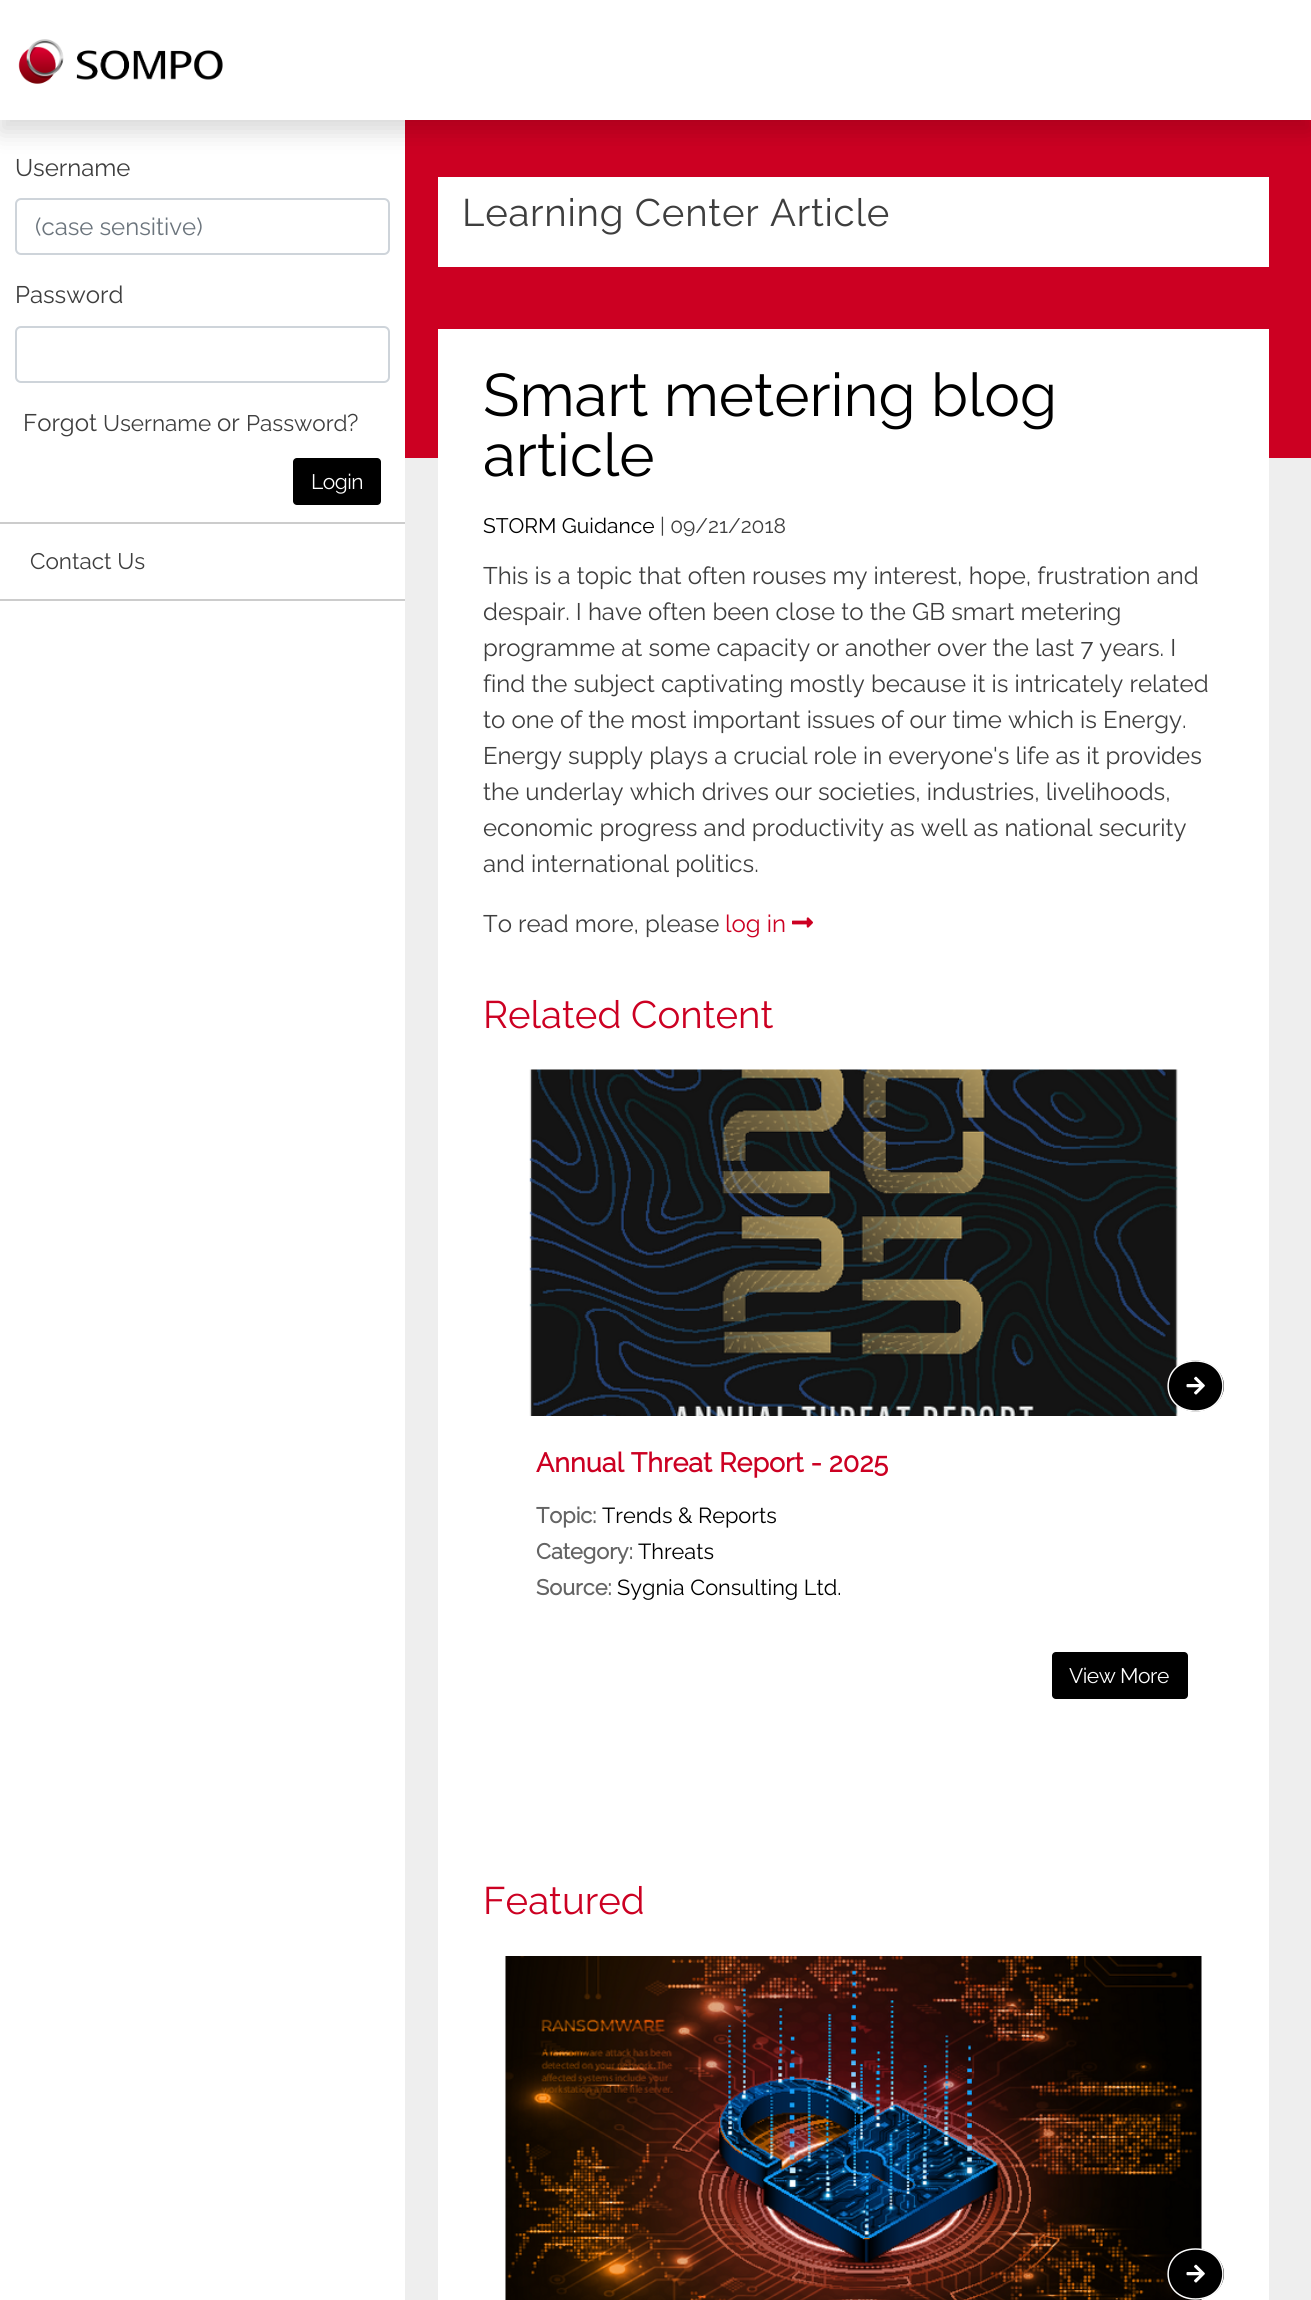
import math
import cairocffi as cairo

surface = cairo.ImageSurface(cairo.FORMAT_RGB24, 1311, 2300)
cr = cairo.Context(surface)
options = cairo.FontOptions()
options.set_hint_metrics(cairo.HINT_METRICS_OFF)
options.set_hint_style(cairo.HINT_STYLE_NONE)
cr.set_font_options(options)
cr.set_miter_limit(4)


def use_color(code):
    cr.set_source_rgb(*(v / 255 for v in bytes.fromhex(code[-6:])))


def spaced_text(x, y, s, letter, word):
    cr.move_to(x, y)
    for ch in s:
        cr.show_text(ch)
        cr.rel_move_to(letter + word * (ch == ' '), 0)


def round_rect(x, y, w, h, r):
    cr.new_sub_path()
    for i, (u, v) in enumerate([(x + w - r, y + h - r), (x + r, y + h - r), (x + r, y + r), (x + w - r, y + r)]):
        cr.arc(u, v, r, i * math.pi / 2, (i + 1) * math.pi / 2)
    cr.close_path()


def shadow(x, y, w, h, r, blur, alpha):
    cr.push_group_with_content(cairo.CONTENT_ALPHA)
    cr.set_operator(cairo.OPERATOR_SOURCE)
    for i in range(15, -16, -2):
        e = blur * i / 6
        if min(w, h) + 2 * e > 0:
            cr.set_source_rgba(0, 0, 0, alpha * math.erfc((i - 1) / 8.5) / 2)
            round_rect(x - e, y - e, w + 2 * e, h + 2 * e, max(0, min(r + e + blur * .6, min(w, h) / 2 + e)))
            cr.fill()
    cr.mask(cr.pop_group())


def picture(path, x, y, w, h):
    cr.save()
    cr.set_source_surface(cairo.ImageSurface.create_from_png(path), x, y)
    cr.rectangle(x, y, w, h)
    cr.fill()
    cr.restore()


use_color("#eeeeee")
cr.paint()
use_color("#ffffff")
cr.rectangle(0, 120, 405, 2180)
cr.fill()
use_color("#cc0022")
cr.rectangle(405, 120, 906, 338)
cr.fill()
use_color("#000000")
shadow(0, 12, 1311, 120, 0, 12, 0.15)
use_color("#ffffff")
cr.rectangle(0, 0, 1311, 120)
cr.fill()
picture("img1.png", 18, 39, 205, 45)
use_color("#cccccc")
cr.rectangle(0, 522, 405, 2)
cr.fill()
cr.select_font_face("Raleway Thin")
cr.set_font_size(24)
use_color("#3e3e3e")
cr.move_to(15, 176)
cr.show_text("Username")
round_rect(16, 199, 373, 55, 5)
use_color("#ced4da")
cr.stroke()
use_color("#6c757d")
cr.move_to(35, 235)
cr.show_text("(case sensitive)")
use_color("#3e3e3e")
cr.move_to(15, 303)
cr.show_text("Password")
round_rect(16, 327, 373, 55, 5)
use_color("#ced4da")
cr.stroke()
use_color("#3e3e3e")
cr.move_to(23, 431)
cr.show_text("Forgot")
cr.set_font_size(22.5)
cr.move_to(103, 431)
cr.show_text("Username")
cr.set_font_size(24)
cr.move_to(217, 431)
cr.show_text("or")
cr.set_font_size(22.5)
cr.move_to(246, 431)
cr.show_text("Password")
cr.set_font_size(24)
cr.move_to(347, 431)
cr.show_text("?")
use_color("#000000")
round_rect(292, 457, 90, 49, 5)
cr.fill_preserve()
use_color("#ffffff")
cr.stroke()
cr.set_font_size(21)
spaced_text(311, 489, "Login", -0.5, 0)
use_color("#cccccc")
cr.rectangle(0, 599, 405, 2)
cr.fill()
cr.set_font_size(22.5)
use_color("#3e3e3e")
cr.move_to(30, 569)
cr.show_text("Contact Us")
use_color("#ffffff")
cr.rectangle(438, 177, 831, 90)
cr.fill()
cr.set_font_size(38.4)
use_color("#3e3e3e")
spaced_text(462, 226, "Learning Center Article", 0.75, 0)
use_color("#ffffff")
cr.rectangle(438, 329, 831, 1971)
cr.fill()
cr.set_font_size(60)
use_color("#000000")
cr.move_to(483, 416)
cr.show_text("Smart metering blog")
cr.move_to(483, 476)
cr.show_text("article")
cr.set_font_size(21)
cr.move_to(483, 533)
cr.show_text("STORM Guidance")
use_color("#3e3e3e")
cr.move_to(660, 533)
cr.show_text("| 09/21/2018")
cr.set_font_size(24)
cr.move_to(483, 584)
cr.show_text("This is a topic that often rouses my interest, hope, frustration and")
cr.move_to(483, 620)
cr.show_text("despair. I have often been close to the GB smart metering")
cr.move_to(483, 656)
cr.show_text("programme at some capacity or another over the last 7 years. I")
cr.move_to(483, 692)
cr.show_text("find the subject captivating mostly because it is intricately related")
cr.move_to(483, 728)
cr.show_text("to one of the most important issues of our time which is Energy.")
cr.move_to(483, 764)
cr.show_text("Energy supply plays a crucial role in everyone's life as it provides")
cr.move_to(483, 800)
cr.show_text("the underlay which drives our societies, industries, livelihoods,")
cr.move_to(483, 836)
cr.show_text("economic progress and productivity as well as national security")
cr.move_to(483, 872)
cr.show_text("and international politics.")
cr.move_to(483, 932)
cr.show_text("To read more, please")
use_color("#cc0022")
cr.move_to(725, 932)
cr.show_text("log in")
picture("img2.png", 792, 917, 21, 11)
cr.set_font_size(38.4)
cr.move_to(483, 1028)
cr.show_text("Related Content")
picture("img4.png", 529, 1069, 649, 347)
use_color("#000000")
cr.new_path()
cr.move_to(1195.5, 1360.5)
cr.curve_to(1211, 1360.5, 1224, 1372, 1224, 1386)
cr.curve_to(1224, 1400, 1211, 1411.5, 1195.5, 1411.5)
cr.curve_to(1180, 1411.5, 1167, 1400, 1167, 1386)
cr.curve_to(1167, 1372, 1180, 1360.5, 1195.5, 1360.5)
cr.close_path()
cr.fill()
cr.new_path()
cr.move_to(1195.5, 1361)
cr.curve_to(1232, 1361, 1232, 1411, 1195.5, 1411)
cr.curve_to(1159, 1411, 1159, 1361, 1195.5, 1361)
cr.close_path()
use_color("#ffffff")
cr.set_line_width(1.5)
cr.stroke()
picture("img3.png", 1186, 1376, 19, 19)
cr.select_font_face("Raleway", cairo.FONT_SLANT_NORMAL, cairo.FONT_WEIGHT_BOLD)
cr.set_font_size(27)
use_color("#cc0022")
cr.move_to(536, 1472)
cr.show_text("Annual Threat Report - 2025")
cr.set_font_size(21.75)
use_color("#646464")
cr.move_to(536, 1523)
cr.show_text("Topic:")
cr.select_font_face("Raleway Thin")
use_color("#000000")
cr.move_to(602, 1523)
cr.show_text("Trends & Reports")
cr.select_font_face("Raleway", cairo.FONT_SLANT_NORMAL, cairo.FONT_WEIGHT_BOLD)
use_color("#646464")
cr.move_to(536, 1559)
cr.show_text("Category:")
cr.select_font_face("Raleway Thin")
use_color("#000000")
cr.move_to(638, 1559)
cr.show_text("Threats")
cr.select_font_face("Raleway", cairo.FONT_SLANT_NORMAL, cairo.FONT_WEIGHT_BOLD)
use_color("#646464")
cr.move_to(536, 1595)
cr.show_text("Source:")
cr.select_font_face("Raleway Thin")
use_color("#000000")
cr.move_to(617, 1595)
cr.show_text("Sygnia Consulting Ltd.")
round_rect(1051, 1651, 138, 49, 5)
cr.fill_preserve()
use_color("#ffffff")
cr.set_line_width(2)
cr.stroke()
cr.set_font_size(21)
spaced_text(1069, 1683, "View More", -0.5, 0)
cr.set_font_size(38.4)
use_color("#cc0022")
cr.move_to(483, 1914)
cr.show_text("Featured")
picture("img5.png", 505, 1956, 697, 344)
use_color("#000000")
cr.new_path()
cr.move_to(1195.5, 2248.5)
cr.curve_to(1211, 2248.5, 1224, 2260, 1224, 2274)
cr.curve_to(1224, 2288, 1211, 2299.5, 1195.5, 2299.5)
cr.curve_to(1180, 2299.5, 1167, 2288, 1167, 2274)
cr.curve_to(1167, 2260, 1180, 2248.5, 1195.5, 2248.5)
cr.close_path()
cr.fill()
cr.new_path()
cr.move_to(1195.5, 2249)
cr.curve_to(1232, 2249, 1232, 2299, 1195.5, 2299)
cr.curve_to(1159, 2299, 1159, 2249, 1195.5, 2249)
cr.close_path()
use_color("#ffffff")
cr.set_line_width(1.5)
cr.stroke()
picture("img3.png", 1186, 2264, 19, 19)
surface.write_to_png("result.png")
